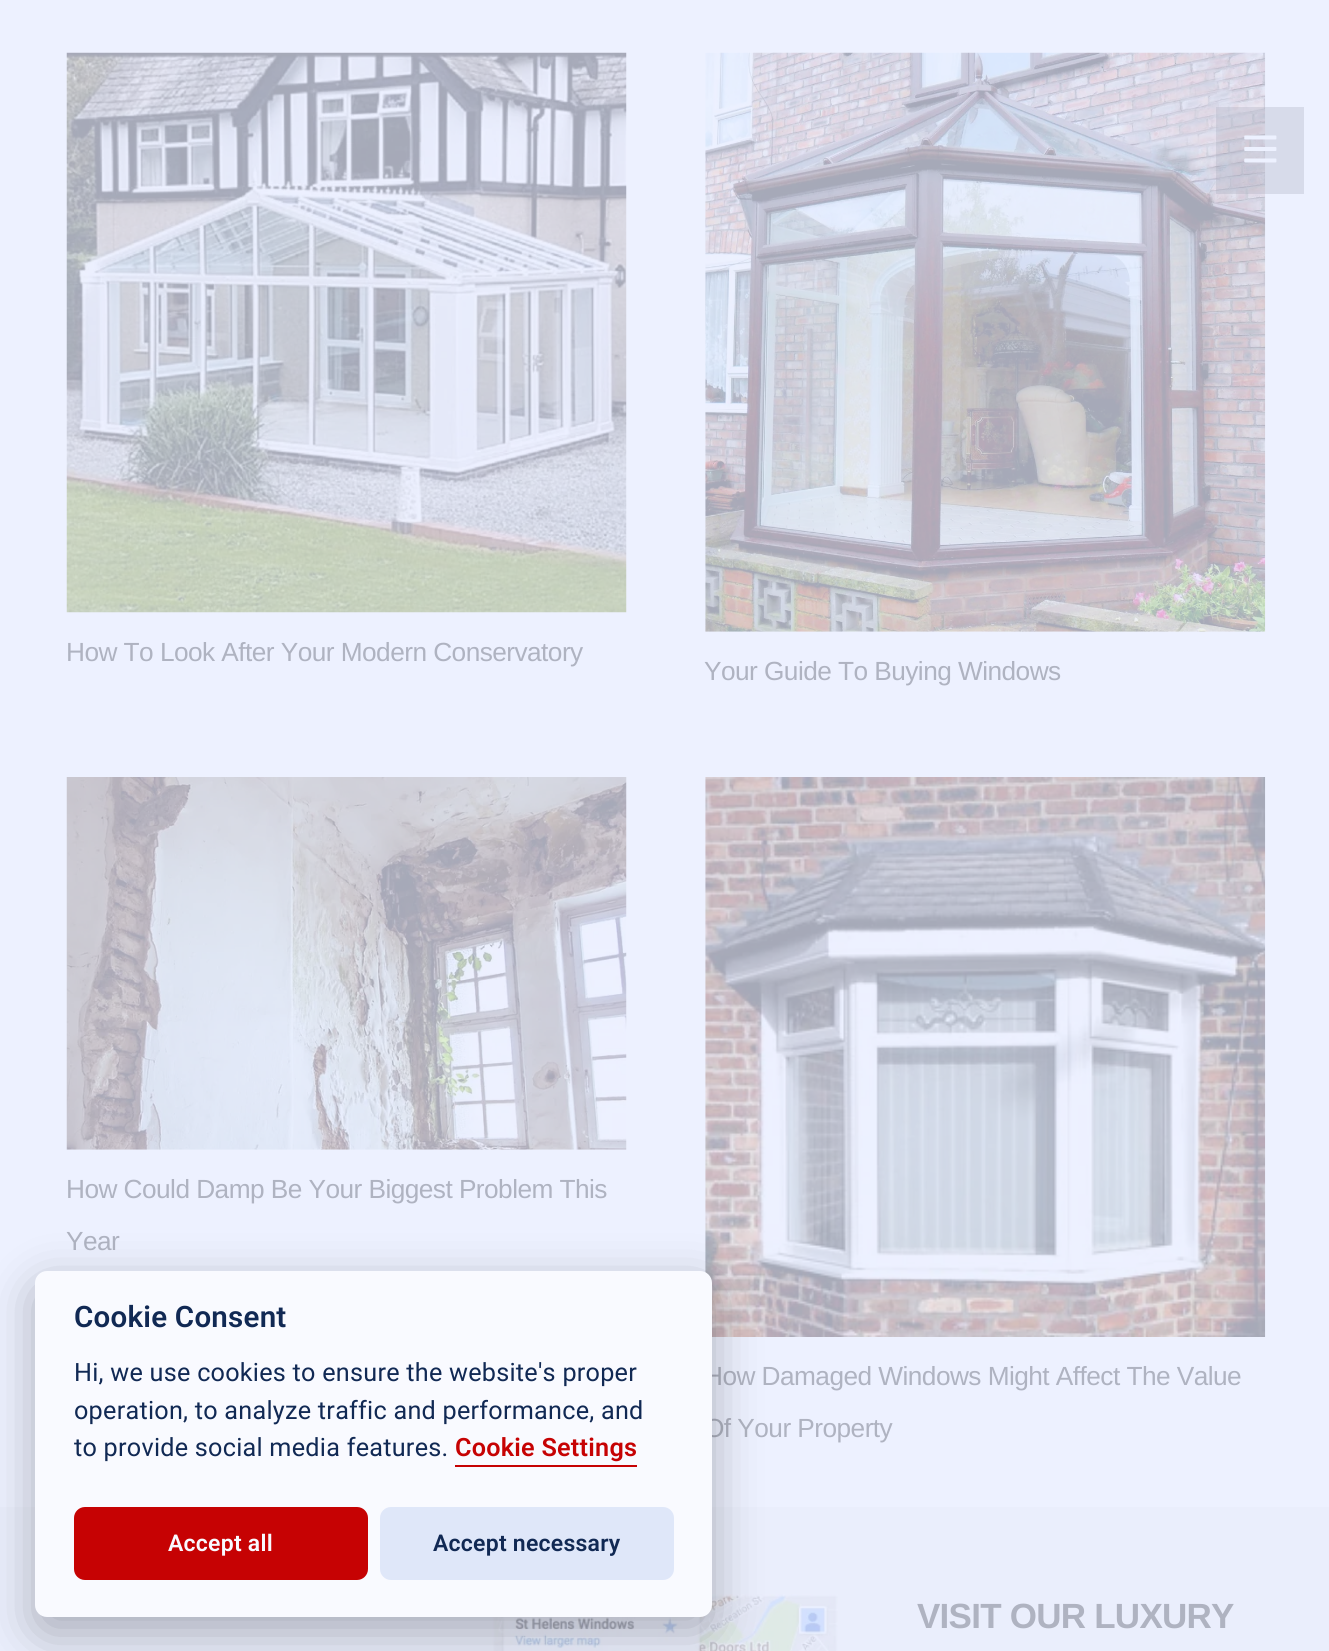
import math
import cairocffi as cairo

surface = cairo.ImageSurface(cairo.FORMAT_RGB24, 1329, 1651)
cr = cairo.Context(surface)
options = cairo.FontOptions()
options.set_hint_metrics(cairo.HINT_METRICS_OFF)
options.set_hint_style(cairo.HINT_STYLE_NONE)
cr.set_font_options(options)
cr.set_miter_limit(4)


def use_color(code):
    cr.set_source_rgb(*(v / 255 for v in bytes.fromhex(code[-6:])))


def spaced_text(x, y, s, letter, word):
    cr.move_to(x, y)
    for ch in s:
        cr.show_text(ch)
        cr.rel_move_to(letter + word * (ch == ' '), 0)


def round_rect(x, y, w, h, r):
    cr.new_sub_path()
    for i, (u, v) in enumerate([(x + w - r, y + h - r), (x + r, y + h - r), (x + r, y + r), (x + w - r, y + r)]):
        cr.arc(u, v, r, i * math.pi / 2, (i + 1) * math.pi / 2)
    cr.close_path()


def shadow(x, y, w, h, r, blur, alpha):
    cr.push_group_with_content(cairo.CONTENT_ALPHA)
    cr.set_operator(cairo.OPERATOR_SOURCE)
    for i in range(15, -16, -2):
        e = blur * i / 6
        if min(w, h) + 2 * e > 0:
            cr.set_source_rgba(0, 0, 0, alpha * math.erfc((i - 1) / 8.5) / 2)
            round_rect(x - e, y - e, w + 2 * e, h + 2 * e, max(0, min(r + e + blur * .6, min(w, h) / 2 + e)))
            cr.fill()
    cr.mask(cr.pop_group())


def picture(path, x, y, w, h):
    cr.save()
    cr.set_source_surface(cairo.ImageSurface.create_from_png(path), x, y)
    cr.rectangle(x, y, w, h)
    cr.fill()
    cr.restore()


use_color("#edf1ff")
cr.paint()
picture("img3.png", 705, 52, 561, 580)
cr.set_source_rgba(0.651, 0.663, 0.722, 0.3)
cr.rectangle(1216, 107, 88, 87)
cr.fill()
picture("img1.png", 1244, 135, 33, 28)
picture("img2.png", 66, 52, 561, 561)
cr.select_font_face("Liberation Sans")
cr.set_font_size(26.25)
use_color("#afb3c1")
spaced_text(66, 661, "How To Look After Your Modern Conservatory", -0.55, 0)
spaced_text(704, 680, "Your Guide To Buying Windows", -0.55, 0)
picture("img4.png", 66, 777, 561, 373)
spaced_text(66, 1198, "How Could Damp Be Your Biggest Problem This", -0.55, 0)
spaced_text(66, 1250, "Year", -0.55, 0)
picture("img5.png", 705, 777, 561, 560)
spaced_text(704, 1385, "How Damaged Windows Might Affect The Value", -0.55, 0)
spaced_text(704, 1437, "Of Your Property", -0.55, 0)
use_color("#eaeefc")
cr.rectangle(0, 1507, 1329, 144)
cr.fill()
picture("img6.png", 492, 1594, 346, 57)
use_color("#020203")
shadow(35, 1286, 677, 347, 12, 24.5, 0.28)
use_color("#f9faff")
round_rect(35, 1271, 677, 346, 12)
cr.fill()
cr.select_font_face("Roboto SemiBold")
cr.set_font_size(29.5)
use_color("#112954")
spaced_text(74, 1327, "Cookie Consent", 0.25, 0)
cr.select_font_face("Roboto")
cr.set_font_size(25.2)
spaced_text(74, 1381, "Hi, we use cookies to ensure the website's proper", 0.25, 0)
spaced_text(74, 1419, "operation, to analyze traffic and performance, and", 0.25, 0)
spaced_text(74, 1456, "to provide social media features.", 0.25, 0)
cr.select_font_face("Roboto SemiBold")
use_color("#c60203")
spaced_text(455, 1456, "Cookie Settings", 0.25, 0)
cr.rectangle(455, 1465, 182, 2)
cr.fill()
round_rect(74, 1507, 294, 73, 11)
cr.fill()
cr.set_font_size(23)
use_color("#f9faff")
spaced_text(168, 1551, "Accept all", 0.25, 0)
use_color("#dfe7f9")
round_rect(380, 1507, 294, 73, 11)
cr.fill()
use_color("#112954")
spaced_text(433, 1551, "Accept necessary", 0.25, 0)
cr.select_font_face("Liberation Sans", cairo.FONT_SLANT_NORMAL, cairo.FONT_WEIGHT_BOLD)
cr.set_font_size(35)
use_color("#afb3c1")
spaced_text(917, 1628, "VISIT OUR LUXURY", -0.75, 0)
surface.write_to_png("result.png")
